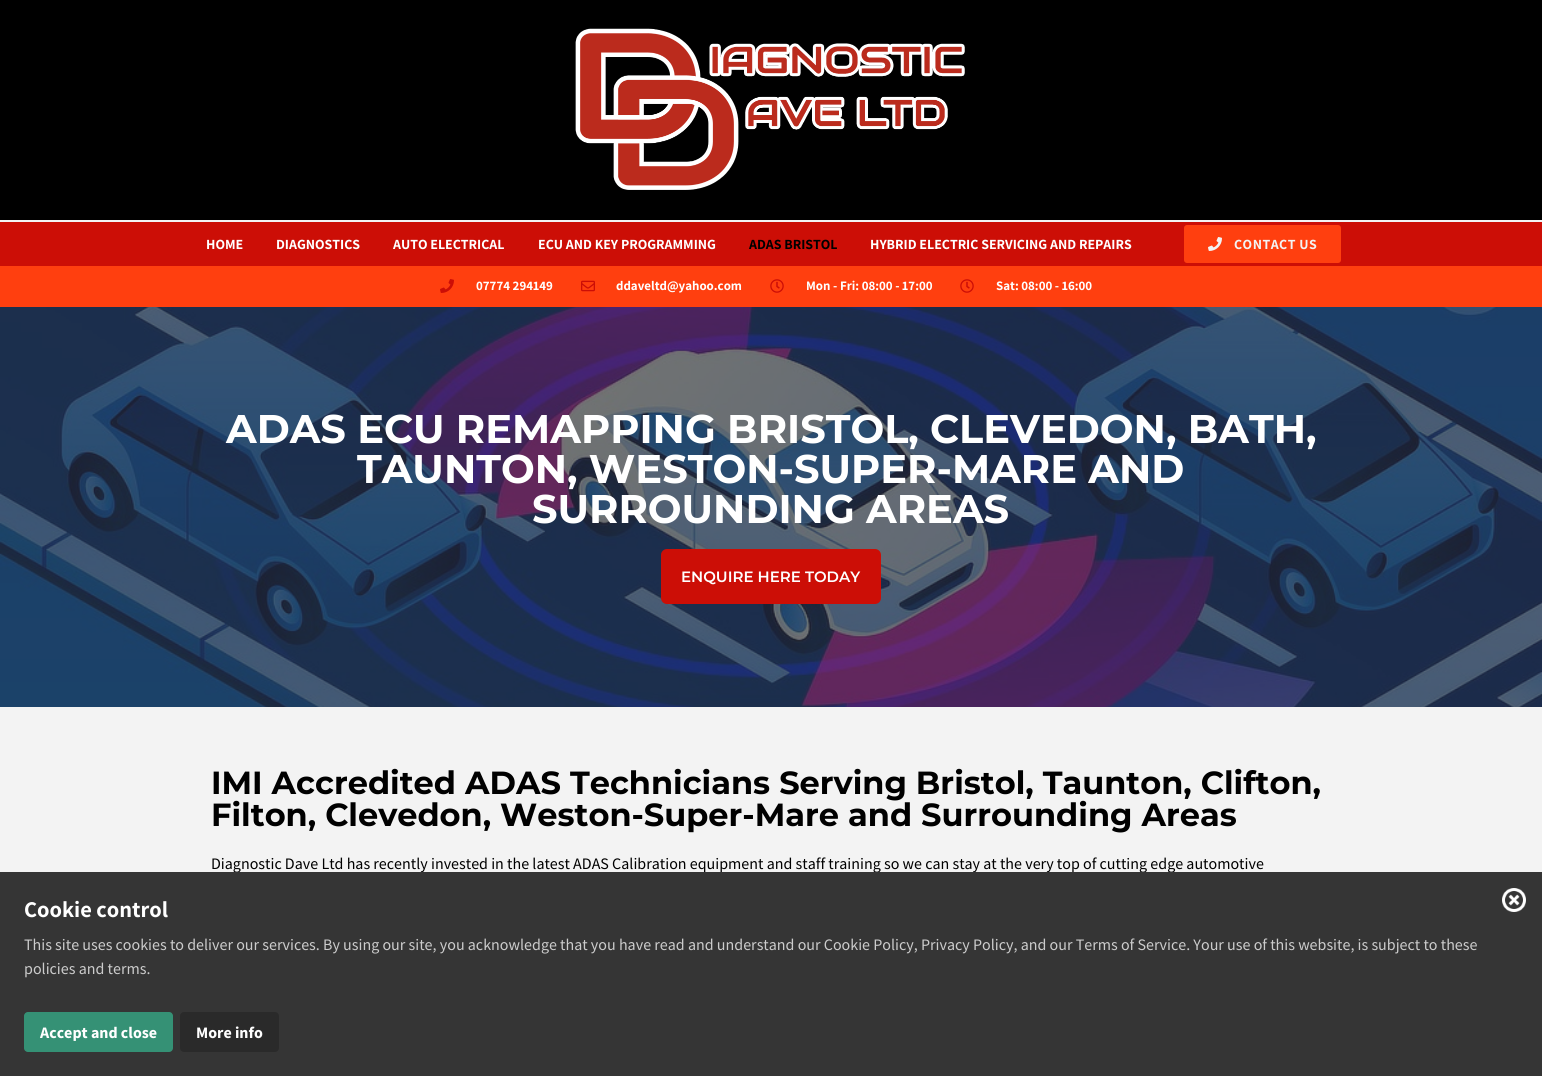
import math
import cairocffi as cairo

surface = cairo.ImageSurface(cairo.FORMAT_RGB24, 1542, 1076)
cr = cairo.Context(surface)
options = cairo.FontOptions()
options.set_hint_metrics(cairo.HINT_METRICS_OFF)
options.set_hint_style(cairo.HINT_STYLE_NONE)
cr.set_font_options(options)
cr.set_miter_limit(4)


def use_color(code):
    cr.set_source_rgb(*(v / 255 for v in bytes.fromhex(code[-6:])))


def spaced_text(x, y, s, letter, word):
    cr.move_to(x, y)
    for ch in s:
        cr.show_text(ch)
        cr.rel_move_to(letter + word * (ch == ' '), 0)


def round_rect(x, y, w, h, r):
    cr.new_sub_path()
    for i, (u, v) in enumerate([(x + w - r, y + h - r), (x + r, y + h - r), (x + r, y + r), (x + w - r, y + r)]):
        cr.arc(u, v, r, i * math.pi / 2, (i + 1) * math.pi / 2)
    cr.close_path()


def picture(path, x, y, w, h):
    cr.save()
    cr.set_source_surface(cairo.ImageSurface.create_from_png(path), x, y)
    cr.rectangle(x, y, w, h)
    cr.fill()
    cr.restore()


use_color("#000000")
cr.paint()
picture("img1.png", 575, 28, 390, 162)
use_color("#cc0e06")
cr.rectangle(0, 222, 1542, 44)
cr.fill()
use_color("#f3f3f3")
cr.rectangle(0, 220, 1542, 2)
cr.fill()
cr.select_font_face("Assistant", cairo.FONT_SLANT_NORMAL, cairo.FONT_WEIGHT_BOLD)
cr.set_font_size(14)
use_color("#ffffff")
cr.move_to(206, 249)
cr.show_text("HOME")
cr.move_to(276, 249)
cr.show_text("DIAGNOSTICS")
cr.move_to(393, 249)
cr.show_text("AUTO ELECTRICAL")
cr.move_to(538, 249)
cr.show_text("ECU AND KEY PROGRAMMING")
use_color("#000000")
cr.move_to(749, 249)
cr.show_text("ADAS BRISTOL")
use_color("#ffffff")
cr.move_to(870, 249)
cr.show_text("HYBRID ELECTRIC SERVICING AND REPAIRS")
use_color("#ff3f0f")
round_rect(1184, 225, 157, 38, 3)
cr.fill()
picture("img2.png", 1208, 237, 14, 14)
use_color("#f3f3f3")
spaced_text(1234, 249, "CONTACT US", 0.5, 0)
use_color("#ff3f0f")
cr.rectangle(0, 266, 1542, 41)
cr.fill()
picture("img3.png", 440, 279, 14, 14)
cr.set_font_size(13)
use_color("#ffffff")
cr.move_to(476, 290)
cr.show_text("07774 294149")
picture("img4.png", 581, 280, 14, 12)
cr.move_to(616, 290)
cr.show_text("ddaveltd@yahoo.com")
picture("img5.png", 770, 279, 14, 14)
cr.move_to(806, 290)
cr.show_text("Mon - Fri: 08:00 - 17:00")
picture("img5.png", 960, 279, 14, 14)
cr.move_to(996, 290)
cr.show_text("Sat: 08:00 - 16:00")
picture("img6.png", 0, 307, 1542, 400)
cr.select_font_face("Montserrat", cairo.FONT_SLANT_NORMAL, cairo.FONT_WEIGHT_BOLD)
cr.set_font_size(40)
cr.move_to(226, 443)
cr.show_text("ADAS ECU REMAPPING BRISTOL, CLEVEDON, BATH,")
cr.move_to(357, 483)
cr.show_text("TAUNTON, WESTON-SUPER-MARE AND")
cr.move_to(532, 523)
cr.show_text("SURROUNDING AREAS")
use_color("#cc0e06")
round_rect(661, 549, 220, 55, 6)
cr.fill()
cr.select_font_face("Montserrat SemiBold")
cr.set_font_size(15)
use_color("#ffffff")
cr.move_to(681, 582)
cr.show_text("ENQUIRE HERE TODAY")
use_color("#f3f3f3")
cr.rectangle(0, 707, 1542, 165)
cr.fill()
cr.select_font_face("Montserrat", cairo.FONT_SLANT_NORMAL, cairo.FONT_WEIGHT_BOLD)
cr.set_font_size(32)
use_color("#000000")
cr.move_to(211, 794)
cr.show_text("IMI Accredited ADAS Technicians Serving Bristol, Taunton, Clifton,")
cr.move_to(211, 826)
cr.show_text("Filton, Clevedon, Weston-Super-Mare and Surrounding Areas")
cr.select_font_face("Source Sans Pro")
cr.set_font_size(16)
cr.move_to(211, 869)
cr.show_text("Diagnostic Dave Ltd has recently invested in the latest ADAS Calibration equipment and staff training so we can stay at the very top of cutting edge automotive")
use_color("#353535")
cr.rectangle(0, 872, 1542, 204)
cr.fill()
cr.select_font_face("Assistant", cairo.FONT_SLANT_NORMAL, cairo.FONT_WEIGHT_BOLD)
cr.set_font_size(22.5)
use_color("#ffffff")
cr.move_to(24, 917)
cr.show_text("Cookie control")
picture("img7.png", 1502, 888, 24, 24)
cr.select_font_face("Source Sans Pro")
cr.set_font_size(16)
use_color("#cccccc")
cr.move_to(24, 950)
cr.show_text("This site uses cookies to deliver our services. By using our site, you acknowledge that you have read and understand our Cookie Policy, Privacy Policy, and our Terms of Service. Your use of this website, is subject to these")
cr.move_to(24, 974)
cr.show_text("policies and terms.")
use_color("#359175")
round_rect(24, 1012, 149, 40, 4)
cr.fill()
cr.select_font_face("Source Sans Pro", cairo.FONT_SLANT_NORMAL, cairo.FONT_WEIGHT_BOLD)
use_color("#ffffff")
cr.move_to(40, 1038)
cr.show_text("Accept and close")
use_color("#2a2a2a")
round_rect(180, 1012, 99, 40, 4)
cr.fill()
use_color("#ffffff")
cr.move_to(196, 1038)
cr.show_text("More info")
surface.write_to_png("result.png")
